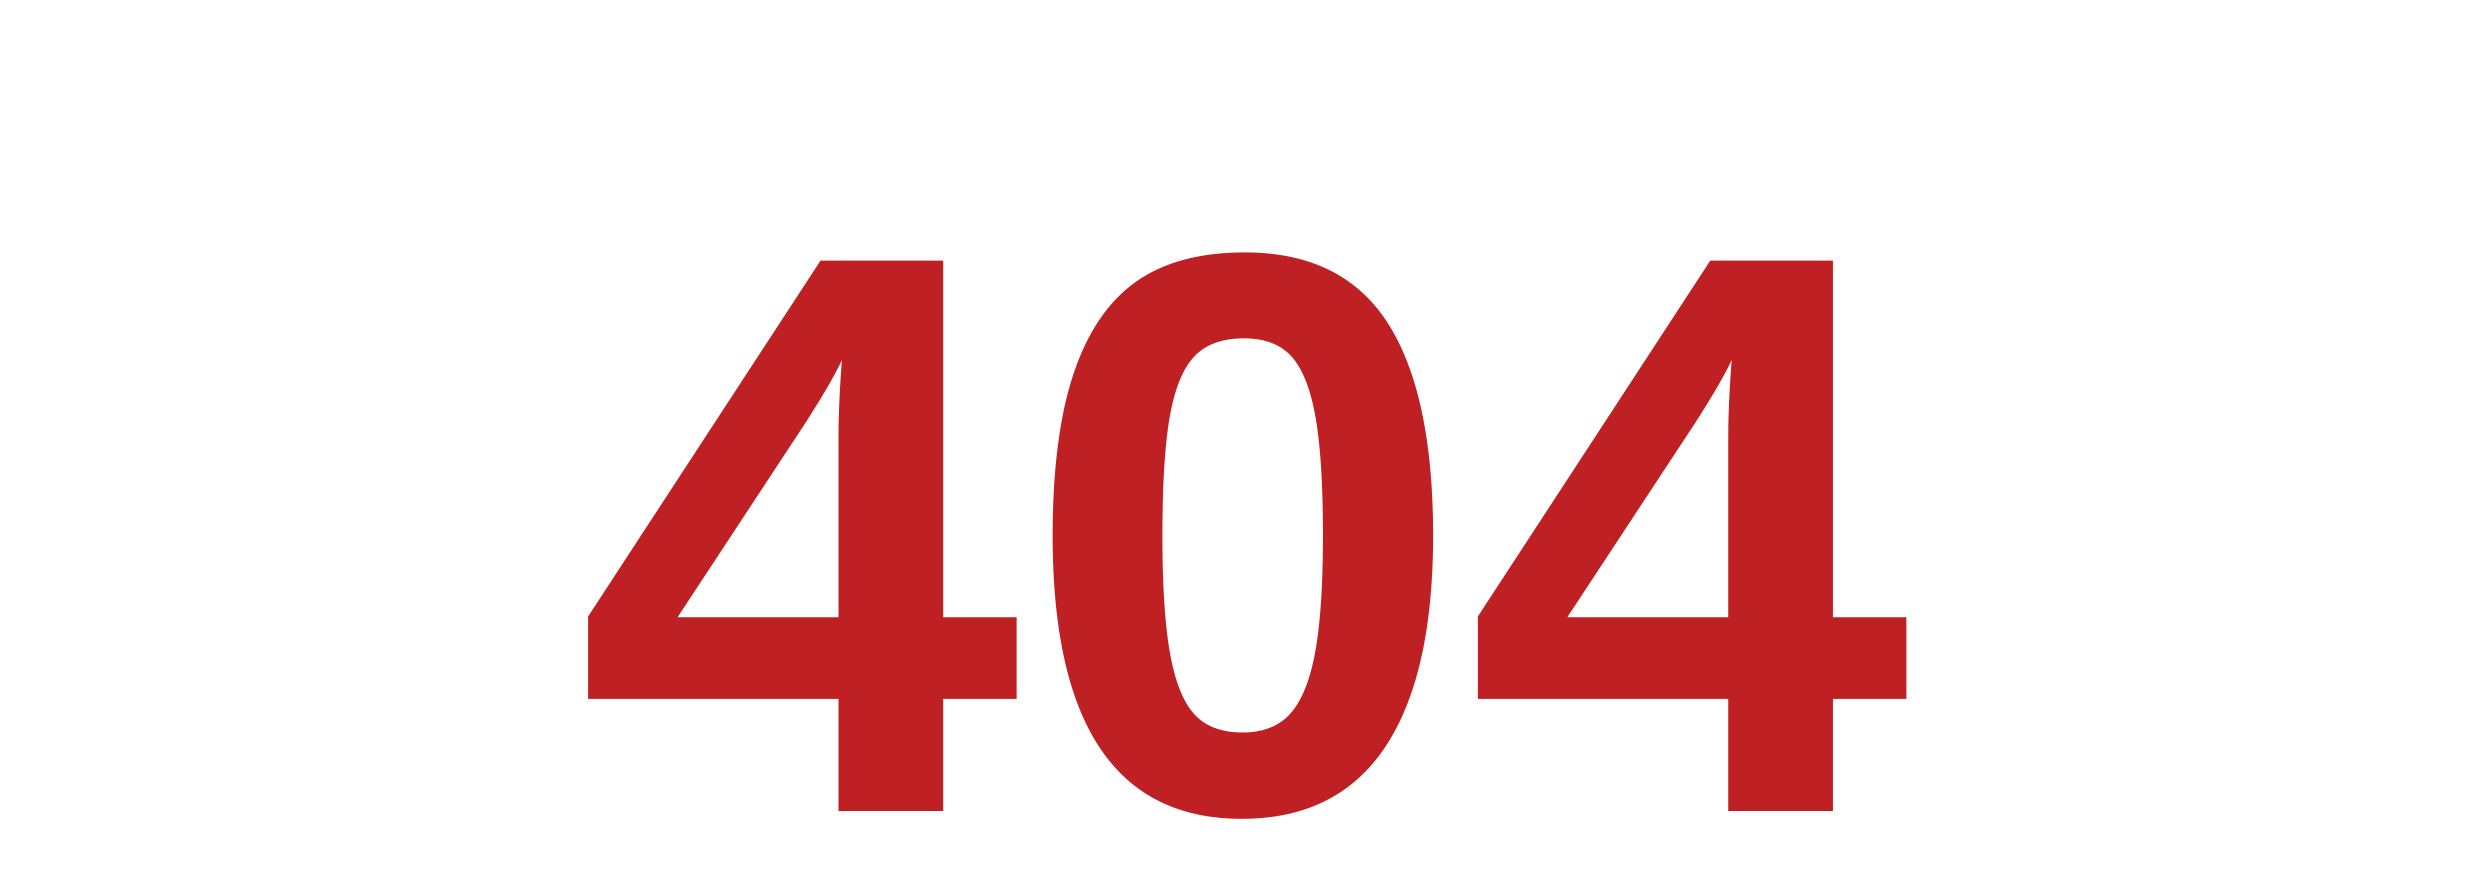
import math
import cairocffi as cairo

surface = cairo.ImageSurface(cairo.FORMAT_RGB24, 2487, 877)
cr = cairo.Context(surface)
options = cairo.FontOptions()
options.set_hint_metrics(cairo.HINT_METRICS_OFF)
options.set_hint_style(cairo.HINT_STYLE_NONE)
cr.set_font_options(options)
cr.set_miter_limit(4)


def use_color(code):
    cr.set_source_rgb(*(v / 255 for v in bytes.fromhex(code[-6:])))


use_color("#ffffff")
cr.paint()
cr.select_font_face("Liberation Sans", cairo.FONT_SLANT_NORMAL, cairo.FONT_WEIGHT_BOLD)
cr.set_font_size(800)
use_color("#bf2023")
cr.move_to(576, 811)
cr.show_text("404")
surface.write_to_png("result.png")
